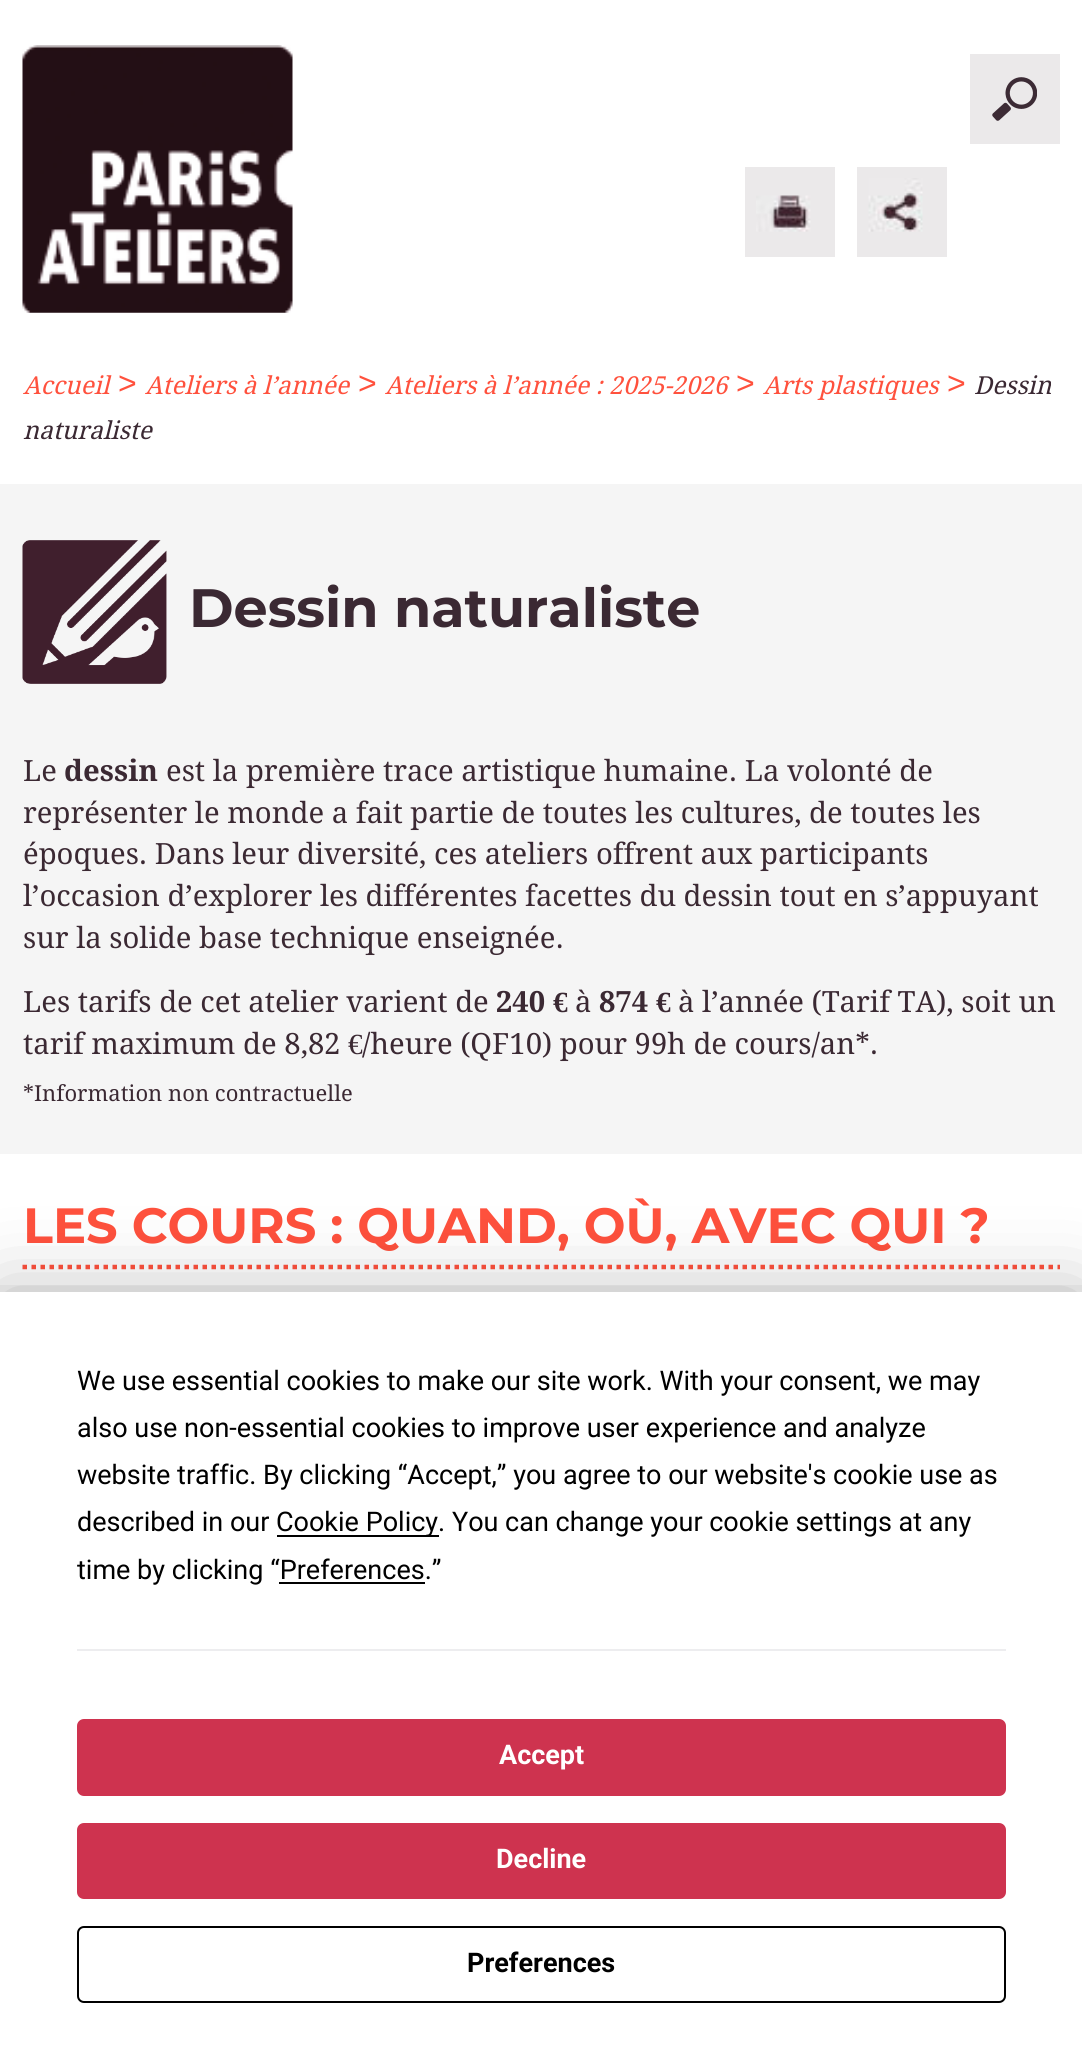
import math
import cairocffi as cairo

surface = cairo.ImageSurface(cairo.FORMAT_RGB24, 1082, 2069)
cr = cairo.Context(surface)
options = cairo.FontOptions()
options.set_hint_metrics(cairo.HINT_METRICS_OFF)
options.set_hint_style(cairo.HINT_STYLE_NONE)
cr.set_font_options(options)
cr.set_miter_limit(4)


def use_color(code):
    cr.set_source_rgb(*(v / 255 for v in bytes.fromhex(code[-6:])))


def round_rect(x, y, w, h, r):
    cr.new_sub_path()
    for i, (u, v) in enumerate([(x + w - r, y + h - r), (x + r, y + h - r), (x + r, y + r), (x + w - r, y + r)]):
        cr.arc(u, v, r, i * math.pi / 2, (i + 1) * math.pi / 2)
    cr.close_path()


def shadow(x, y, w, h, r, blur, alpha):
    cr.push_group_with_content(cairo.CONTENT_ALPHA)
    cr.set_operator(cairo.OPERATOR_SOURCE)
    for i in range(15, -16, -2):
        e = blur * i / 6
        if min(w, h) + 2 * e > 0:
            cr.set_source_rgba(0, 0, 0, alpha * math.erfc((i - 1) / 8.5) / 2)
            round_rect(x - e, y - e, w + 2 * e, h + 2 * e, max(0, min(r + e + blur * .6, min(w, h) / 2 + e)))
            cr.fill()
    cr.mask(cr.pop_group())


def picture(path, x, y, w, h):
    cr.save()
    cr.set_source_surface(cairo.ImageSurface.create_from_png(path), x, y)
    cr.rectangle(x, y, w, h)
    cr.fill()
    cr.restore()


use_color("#ffffff")
cr.paint()
picture("img1.png", 22, 45, 271, 268)
use_color("#ebe9ea")
cr.rectangle(970, 54, 90, 90)
cr.fill()
picture("img2.png", 992, 77, 45, 44)
cr.rectangle(745, 167, 90, 90)
cr.fill()
picture("img3.png", 756, 195, 55, 37)
cr.rectangle(857, 167, 90, 90)
cr.fill()
picture("img4.png", 868, 178, 55, 54)
cr.select_font_face("Droid Serif", cairo.FONT_SLANT_ITALIC)
cr.set_font_size(24.75)
use_color("#ff513d")
cr.move_to(23, 394)
cr.show_text("Accueil")
cr.select_font_face("Liberation Sans")
cr.set_font_size(32)
cr.move_to(118, 394)
cr.show_text(">")
cr.select_font_face("Droid Serif", cairo.FONT_SLANT_ITALIC)
cr.set_font_size(24.75)
cr.move_to(145, 394)
cr.show_text("Ateliers à l’année")
cr.select_font_face("Liberation Sans")
cr.set_font_size(32)
cr.move_to(358, 394)
cr.show_text(">")
cr.select_font_face("Droid Serif", cairo.FONT_SLANT_ITALIC)
cr.set_font_size(24.75)
cr.move_to(385, 394)
cr.show_text("Ateliers à l’année : 2025-2026")
cr.select_font_face("Liberation Sans")
cr.set_font_size(32)
cr.move_to(736, 394)
cr.show_text(">")
cr.select_font_face("Droid Serif", cairo.FONT_SLANT_ITALIC)
cr.set_font_size(24.75)
cr.move_to(763, 394)
cr.show_text("Arts plastiques")
cr.select_font_face("Liberation Sans")
cr.set_font_size(32)
cr.move_to(947, 394)
cr.show_text(">")
cr.select_font_face("Droid Serif", cairo.FONT_SLANT_ITALIC)
cr.set_font_size(24.75)
use_color("#3b2933")
cr.move_to(974, 394)
cr.show_text("Dessin")
cr.move_to(23, 439)
cr.show_text("naturaliste")
use_color("#f5f5f5")
cr.rectangle(0, 484, 1082, 670)
cr.fill()
picture("img5.png", 22, 540, 145, 144)
cr.select_font_face("Montserrat", cairo.FONT_SLANT_NORMAL, cairo.FONT_WEIGHT_BOLD)
cr.set_font_size(54)
use_color("#3b2933")
cr.move_to(189, 627)
cr.show_text("Dessin naturaliste")
cr.select_font_face("Droid Serif")
cr.set_font_size(29.25)
cr.move_to(23, 781)
cr.show_text("Le")
cr.select_font_face("Droid Serif", cairo.FONT_SLANT_NORMAL, cairo.FONT_WEIGHT_BOLD)
cr.move_to(64, 781)
cr.show_text("dessin")
cr.select_font_face("Droid Serif")
cr.move_to(166, 781)
cr.show_text("est la première trace artistique humaine. La volonté de")
cr.move_to(23, 823)
cr.show_text("représenter le monde a fait partie de toutes les cultures, de toutes les")
cr.move_to(23, 864)
cr.show_text("époques. Dans leur diversité, ces ateliers offrent aux participants")
cr.move_to(23, 906)
cr.show_text("l’occasion d’explorer les différentes facettes du dessin tout en s’appuyant")
cr.move_to(23, 948)
cr.show_text("sur la solide base technique enseignée.")
cr.move_to(23, 1012)
cr.show_text("Les tarifs de cet atelier varient de")
cr.select_font_face("Droid Serif", cairo.FONT_SLANT_NORMAL, cairo.FONT_WEIGHT_BOLD)
cr.move_to(496, 1012)
cr.show_text("240")
cr.select_font_face("Liberation Serif", cairo.FONT_SLANT_NORMAL, cairo.FONT_WEIGHT_BOLD)
cr.move_to(553, 1012)
cr.show_text("€")
cr.select_font_face("Droid Serif")
cr.move_to(575, 1012)
cr.show_text("à")
cr.select_font_face("Droid Serif", cairo.FONT_SLANT_NORMAL, cairo.FONT_WEIGHT_BOLD)
cr.move_to(599, 1012)
cr.show_text("874")
cr.select_font_face("Liberation Serif", cairo.FONT_SLANT_NORMAL, cairo.FONT_WEIGHT_BOLD)
cr.move_to(656, 1012)
cr.show_text("€")
cr.select_font_face("Droid Serif")
cr.move_to(678, 1012)
cr.show_text("à l’année (Tarif TA), soit un")
cr.move_to(23, 1054)
cr.show_text("tarif maximum de 8,82")
cr.select_font_face("Liberation Serif")
cr.move_to(348, 1054)
cr.show_text("€")
cr.select_font_face("Droid Serif")
cr.move_to(362, 1054)
cr.show_text("/heure (QF10) pour 99h de cours/an*.")
cr.set_font_size(22)
cr.move_to(23, 1101)
cr.show_text("*Information non contractuelle")
cr.new_path()
cr.move_to(22.5, 1267)
cr.line_to(1060, 1267)
use_color("#ff513d")
cr.set_line_width(4.5)
cr.set_dash([4.5, 4.5])
cr.stroke()
cr.select_font_face("Montserrat", cairo.FONT_SLANT_NORMAL, cairo.FONT_WEIGHT_BOLD)
cr.set_font_size(49.5)
cr.move_to(23, 1243)
cr.show_text("LES COURS : QUAND, OÙ, AVEC QUI ?")
use_color("#f5f5f5")
cr.rectangle(0, 1285, 1082, 7)
cr.fill()
use_color("#000000")
shadow(0, 1292, 1082, 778, 0, 39.5, 0.25)
use_color("#ffffff")
cr.rectangle(0, 1292, 1082, 777)
cr.fill()
cr.select_font_face("Roboto")
cr.set_font_size(27)
use_color("#000000")
cr.move_to(77, 1390)
cr.show_text("We use essential cookies to make our site work. With your consent, we may")
cr.move_to(77, 1437)
cr.show_text("also use non-essential cookies to improve user experience and analyze")
cr.move_to(77, 1484)
cr.show_text("website traffic. By clicking “Accept,” you agree to our website's cookie use as")
cr.move_to(77, 1531)
cr.show_text("described in our")
cr.rectangle(277, 1535, 162, 2)
cr.fill()
cr.move_to(276, 1531)
cr.show_text("Cookie Policy. You can change your cookie settings at any")
cr.move_to(77, 1579)
cr.show_text("time by clicking “Preferences.”")
cr.rectangle(279, 1582, 146, 2)
cr.fill()
use_color("#ededef")
cr.rectangle(77, 1649, 929, 2)
cr.fill()
use_color("#ce334f")
round_rect(78, 1720, 927, 75, 6)
cr.fill_preserve()
cr.set_line_width(2)
cr.set_dash([])
cr.stroke()
cr.select_font_face("Roboto", cairo.FONT_SLANT_NORMAL, cairo.FONT_WEIGHT_BOLD)
use_color("#ffffff")
cr.move_to(499, 1764)
cr.show_text("Accept")
use_color("#ce334f")
round_rect(78, 1824, 927, 74, 6)
cr.fill_preserve()
cr.stroke()
use_color("#ffffff")
cr.move_to(496, 1868)
cr.show_text("Decline")
round_rect(78, 1927, 927, 75, 6)
use_color("#000000")
cr.stroke()
cr.move_to(467, 1972)
cr.show_text("Preferences")
surface.write_to_png("result.png")
